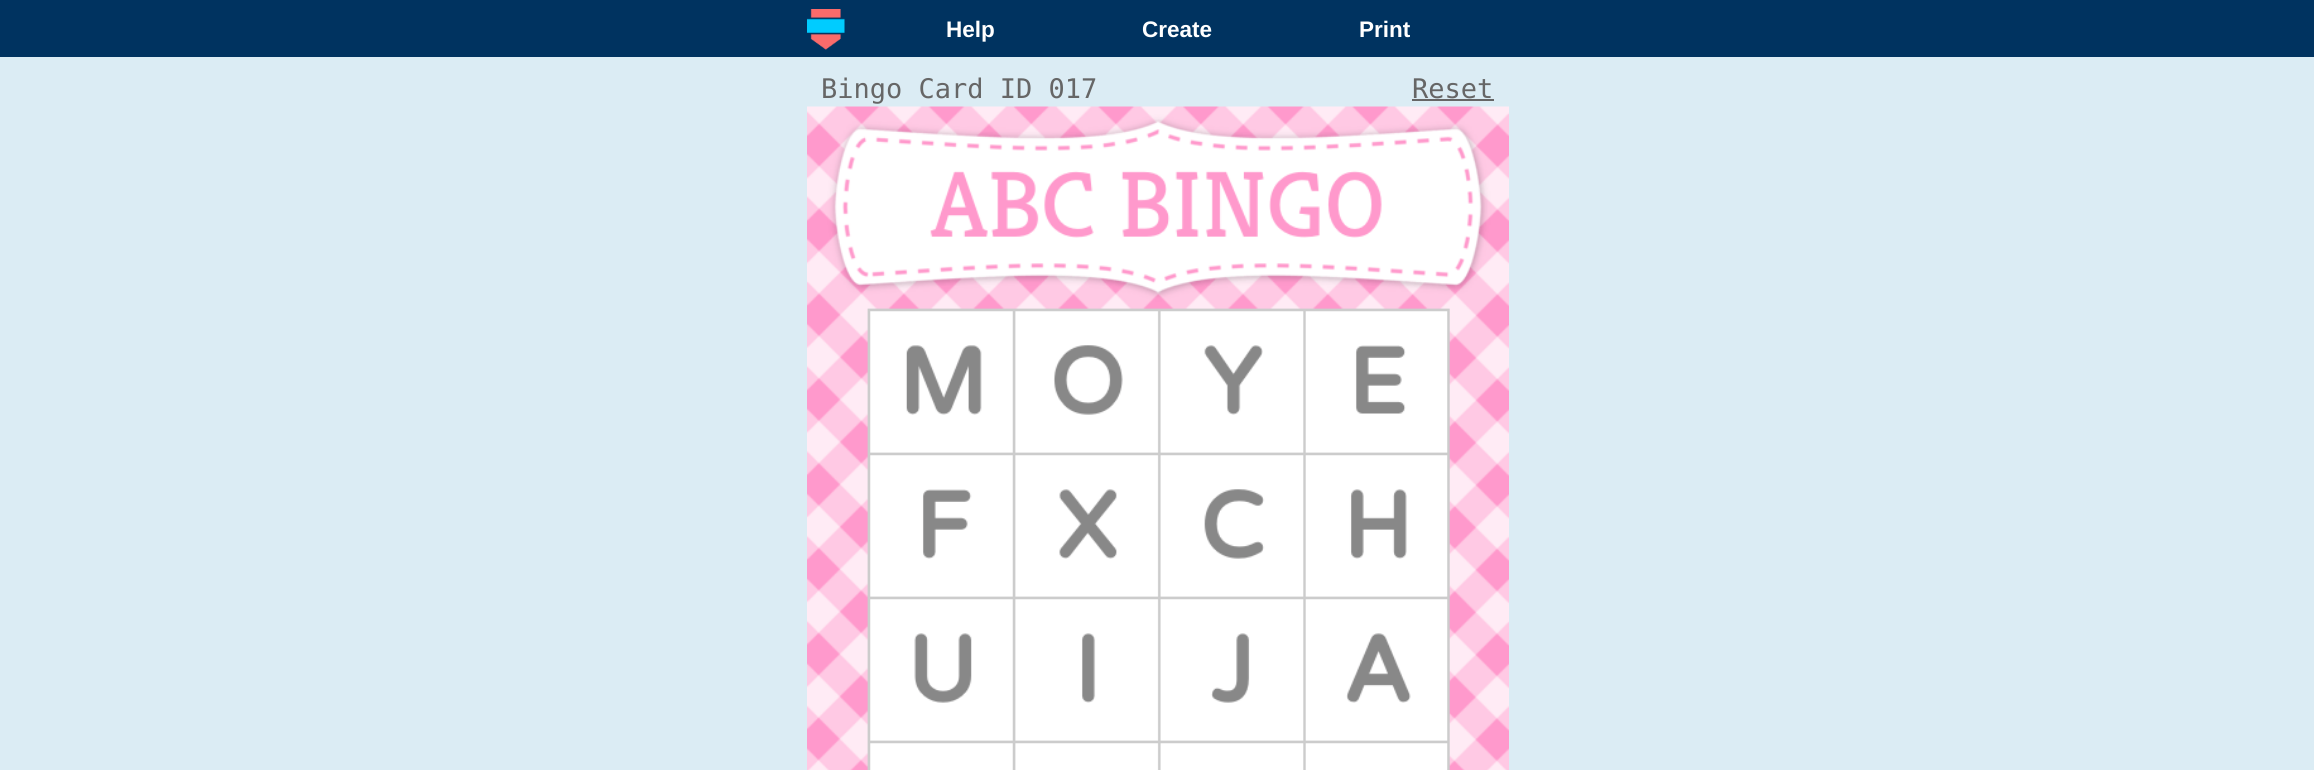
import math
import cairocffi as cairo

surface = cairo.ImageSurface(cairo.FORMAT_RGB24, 2314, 770)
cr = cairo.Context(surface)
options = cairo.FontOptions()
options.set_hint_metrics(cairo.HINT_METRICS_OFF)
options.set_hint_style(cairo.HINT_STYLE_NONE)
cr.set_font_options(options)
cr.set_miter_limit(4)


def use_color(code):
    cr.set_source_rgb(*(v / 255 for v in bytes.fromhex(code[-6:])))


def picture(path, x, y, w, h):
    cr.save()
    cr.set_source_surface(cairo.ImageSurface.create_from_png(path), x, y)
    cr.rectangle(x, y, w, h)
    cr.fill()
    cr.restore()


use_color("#dbecf4")
cr.paint()
use_color("#003360")
cr.rectangle(0, 0, 2314, 57)
cr.fill()
picture("img1.png", 807, 9, 38, 41)
cr.select_font_face("Liberation Sans", cairo.FONT_SLANT_NORMAL, cairo.FONT_WEIGHT_BOLD)
cr.set_font_size(22.5)
use_color("#ffffff")
cr.move_to(946, 37)
cr.show_text("Help")
cr.move_to(1142, 37)
cr.show_text("Create")
cr.move_to(1359, 37)
cr.show_text("Print")
cr.select_font_face("DejaVu Sans Mono")
cr.set_font_size(27)
use_color("#666666")
cr.move_to(821, 98)
cr.show_text("Bingo Card ID 017")
cr.move_to(1412, 98)
cr.show_text("Reset")
cr.rectangle(1412, 99, 82, 2)
cr.fill()
picture("img2.png", 807, 106, 702, 664)
surface.write_to_png("result.png")
